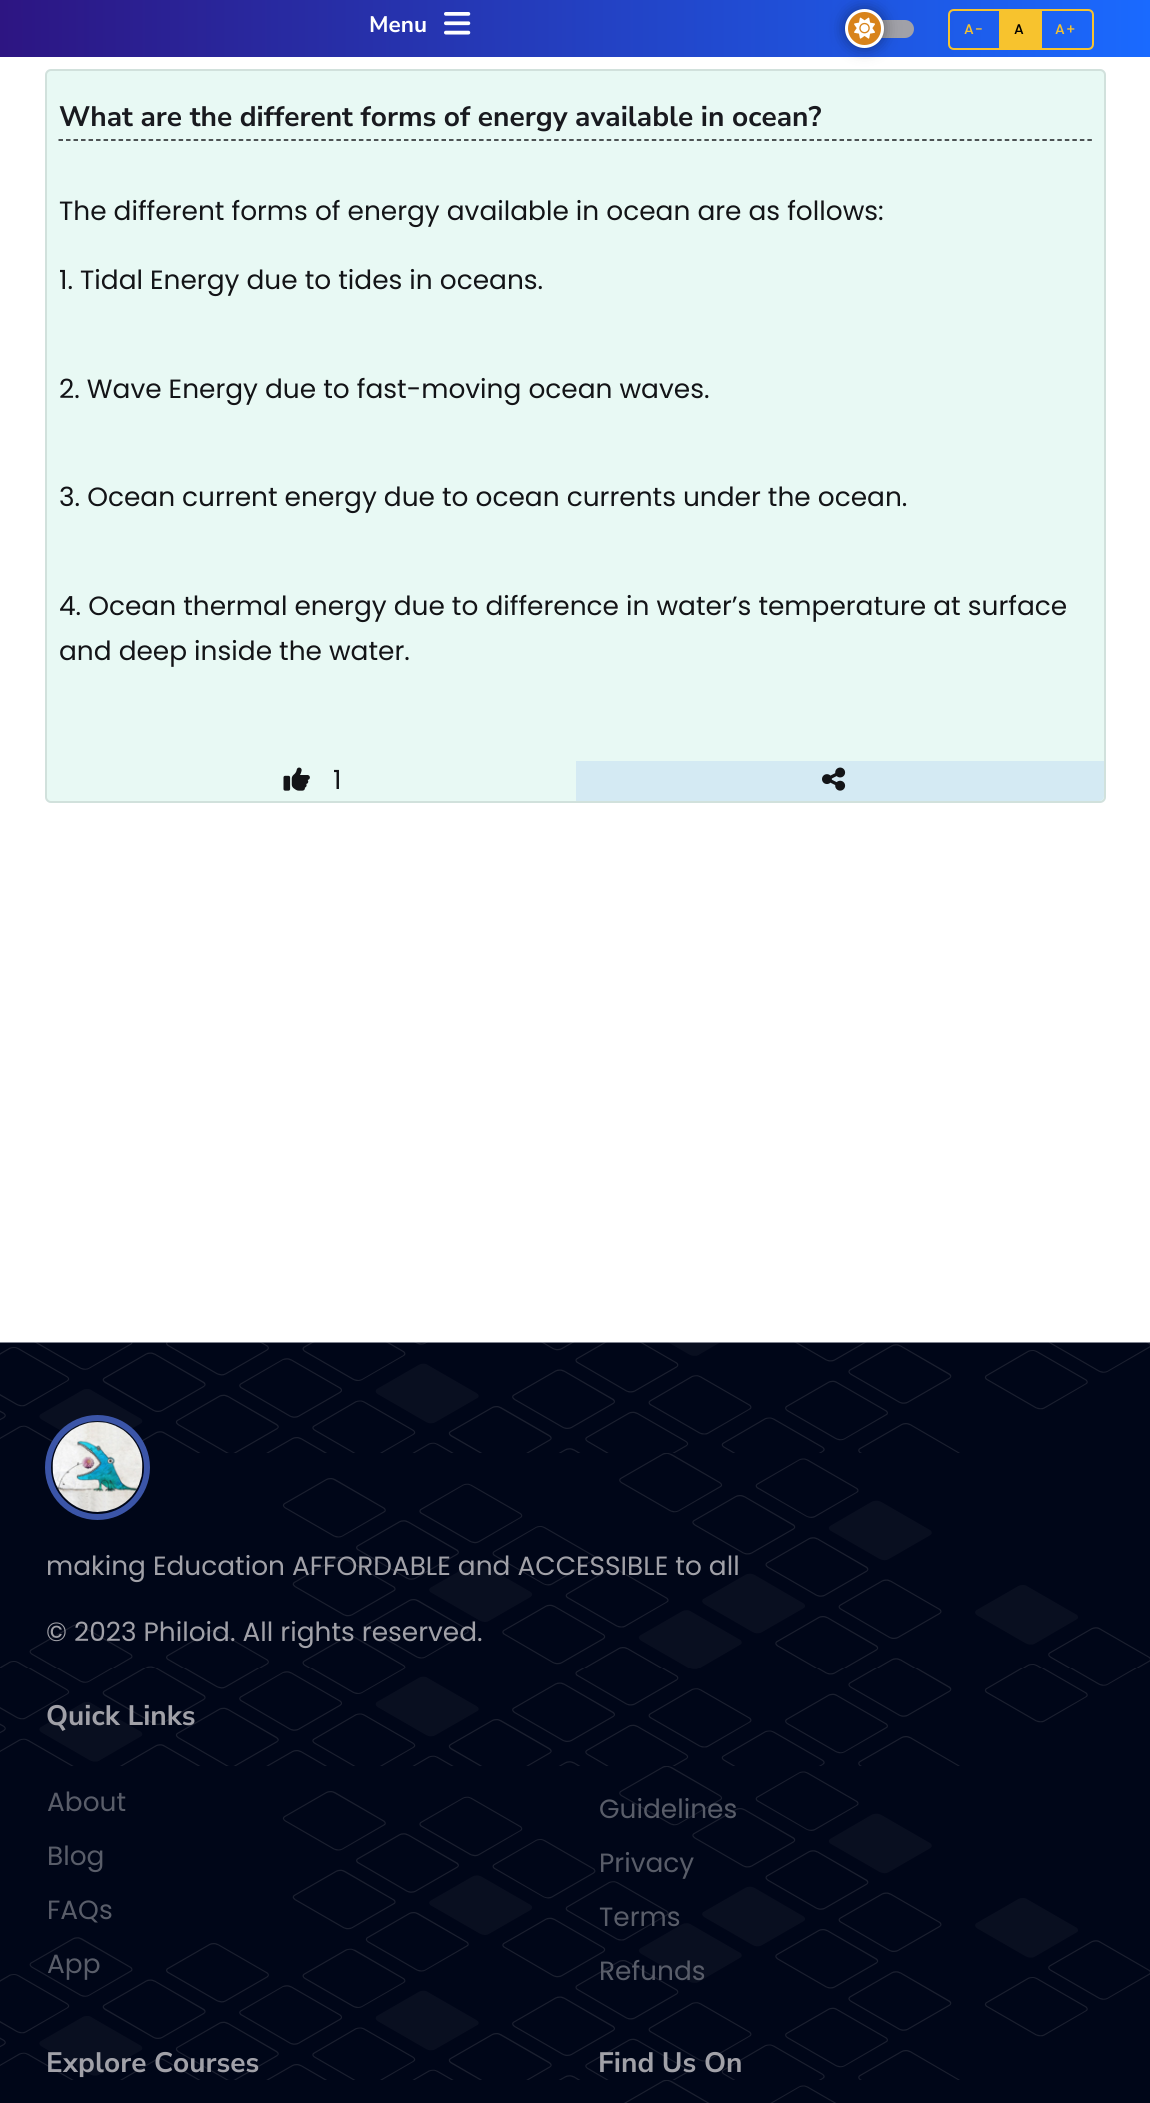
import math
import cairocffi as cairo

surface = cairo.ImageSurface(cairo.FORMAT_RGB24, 1150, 2103)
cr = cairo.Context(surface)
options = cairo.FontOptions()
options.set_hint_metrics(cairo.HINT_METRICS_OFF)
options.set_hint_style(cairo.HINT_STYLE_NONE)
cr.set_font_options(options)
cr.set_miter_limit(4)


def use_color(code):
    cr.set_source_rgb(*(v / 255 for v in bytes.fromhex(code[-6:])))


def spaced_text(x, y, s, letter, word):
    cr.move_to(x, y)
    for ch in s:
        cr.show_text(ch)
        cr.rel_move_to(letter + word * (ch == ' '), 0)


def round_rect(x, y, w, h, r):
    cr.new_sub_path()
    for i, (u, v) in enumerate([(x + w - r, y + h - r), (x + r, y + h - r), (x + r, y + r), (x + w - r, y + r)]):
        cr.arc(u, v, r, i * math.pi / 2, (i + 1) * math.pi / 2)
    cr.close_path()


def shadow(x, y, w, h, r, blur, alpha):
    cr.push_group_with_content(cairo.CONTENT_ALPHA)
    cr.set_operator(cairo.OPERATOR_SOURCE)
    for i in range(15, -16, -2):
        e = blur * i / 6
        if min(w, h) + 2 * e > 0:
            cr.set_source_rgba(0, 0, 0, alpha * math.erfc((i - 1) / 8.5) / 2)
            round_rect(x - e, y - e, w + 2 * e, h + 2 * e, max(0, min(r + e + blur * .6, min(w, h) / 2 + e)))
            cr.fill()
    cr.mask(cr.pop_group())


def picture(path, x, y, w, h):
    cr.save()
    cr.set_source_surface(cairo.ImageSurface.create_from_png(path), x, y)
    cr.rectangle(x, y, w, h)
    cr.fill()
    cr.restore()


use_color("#ffffff")
cr.paint()
gradient = cairo.LinearGradient(0, 29, 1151, 28)
gradient.add_color_stop_rgba(0, 0.176, 0.082, 0.51, 1)
gradient.add_color_stop_rgba(1, 0.102, 0.416, 1, 1)
cr.set_source(gradient)
cr.rectangle(0, 0, 1150, 57)
cr.fill()
cr.select_font_face("Nunito Sans", cairo.FONT_SLANT_NORMAL, cairo.FONT_WEIGHT_BOLD)
cr.set_font_size(22.5)
use_color("#ffffff")
cr.move_to(369, 32)
cr.show_text("Menu")
picture("img1.png", 444, 12, 27, 23)
use_color("#a1a1a8")
round_rect(851, 20, 63, 18, 9)
cr.fill()
use_color("#e8f9f4")
round_rect(45, 69, 1061, 734, 6)
cr.fill()
round_rect(46, 70, 1059, 732, 5)
cr.set_source_rgba(0, 0, 0, 0.1)
cr.stroke()
use_color("#000000")
shadow(845, 9, 39, 39, 19.5, 7.5, 0.4)
use_color("#d8831b")
cr.arc(864.5, 28.5, 18, 0, 2 * math.pi)
cr.fill_preserve()
use_color("#ffffff")
cr.set_line_width(3)
cr.stroke()
picture("img2.png", 854, 17, 21, 22)
cr.new_path()
cr.move_to(954, 10)
cr.line_to(1000, 10)
cr.line_to(1000, 49)
cr.line_to(954, 49)
cr.curve_to(951, 49, 949, 47, 949, 44)
cr.line_to(949, 15)
cr.curve_to(949, 12, 951, 10, 954, 10)
cr.close_path()
use_color("#f7c32e")
cr.set_line_width(2)
cr.stroke()
cr.select_font_face("Poppins Medium")
cr.set_font_size(14)
spaced_text(964, 34, "A-", 1, 0)
cr.rectangle(1001, 9, 39, 41)
cr.fill()
use_color("#000000")
spaced_text(1014, 34, "A", 1, 0)
cr.new_path()
cr.move_to(1041, 10)
cr.line_to(1088, 10)
cr.curve_to(1091, 10, 1093, 12, 1093, 15)
cr.line_to(1093, 44)
cr.curve_to(1093, 47, 1091, 49, 1088, 49)
cr.line_to(1041, 49)
cr.close_path()
use_color("#f7c32e")
cr.stroke()
spaced_text(1055, 34, "A+", 1, 0)
cr.new_path()
cr.move_to(58.5, 140)
cr.line_to(1092, 140)
use_color("#191a1f")
cr.set_line_width(1.5)
cr.set_dash([4.5, 3.01])
cr.stroke()
cr.select_font_face("Nunito Sans", cairo.FONT_SLANT_NORMAL, cairo.FONT_WEIGHT_BOLD)
cr.set_font_size(28.1)
cr.move_to(59, 126)
cr.show_text("What are the different forms of energy available in ocean?")
cr.select_font_face("Poppins")
cr.set_font_size(26.4)
use_color("#131417")
cr.move_to(59, 220)
cr.show_text("The different forms of energy available in ocean are as follows:")
cr.move_to(59, 289)
cr.show_text("1. Tidal Energy due to tides in oceans.")
cr.move_to(59, 398)
cr.show_text("2. Wave Energy due to fast-moving ocean waves.")
cr.move_to(59, 506)
cr.show_text("3. Ocean current energy due to ocean currents under the ocean.")
cr.move_to(59, 615)
cr.show_text("4. Ocean thermal energy due to difference in water’s temperature at surface")
cr.move_to(59, 660)
cr.show_text("and deep inside the water.")
picture("img3.png", 283, 767, 27, 24)
cr.move_to(333, 789)
cr.show_text("1")
use_color("#d4eaf3")
cr.new_path()
cr.move_to(576, 761)
cr.line_to(1104, 761)
cr.line_to(1104, 796)
cr.curve_to(1104, 799, 1102, 801, 1099, 801)
cr.line_to(576, 801)
cr.close_path()
cr.fill()
picture("img4.png", 822, 767, 24, 24)
picture("img5.png", 0, 1342, 1150, 761)
cr.arc(97.5, 1467.5, 49.5, 0, 2 * math.pi)
use_color("#3b55a8")
cr.set_line_width(6)
cr.set_dash([])
cr.stroke()
picture("img6.png", 52, 1422, 91, 90)
use_color("#a1a1a8")
cr.move_to(46, 1575)
cr.show_text("making Education AFFORDABLE and ACCESSIBLE to all")
cr.move_to(46, 1641)
cr.show_text("© 2023 Philoid. All rights reserved.")
cr.select_font_face("Nunito Sans", cairo.FONT_SLANT_NORMAL, cairo.FONT_WEIGHT_BOLD)
cr.set_font_size(28.1)
cr.move_to(46, 1725)
cr.show_text("Quick Links")
cr.select_font_face("Poppins")
cr.set_font_size(26.4)
use_color("#595d69")
cr.move_to(47, 1811)
cr.show_text("About")
cr.move_to(47, 1865)
cr.show_text("Blog")
cr.move_to(47, 1919)
cr.show_text("FAQs")
cr.move_to(47, 1973)
cr.show_text("App")
cr.move_to(599, 1818)
cr.show_text("Guidelines")
cr.move_to(599, 1872)
cr.show_text("Privacy")
cr.move_to(599, 1926)
cr.show_text("Terms")
cr.move_to(599, 1980)
cr.show_text("Refunds")
cr.select_font_face("Nunito Sans", cairo.FONT_SLANT_NORMAL, cairo.FONT_WEIGHT_BOLD)
cr.set_font_size(28.1)
use_color("#a1a1a8")
cr.move_to(46, 2072)
cr.show_text("Explore Courses")
cr.move_to(598, 2072)
cr.show_text("Find Us On")
surface.write_to_png("result.png")
